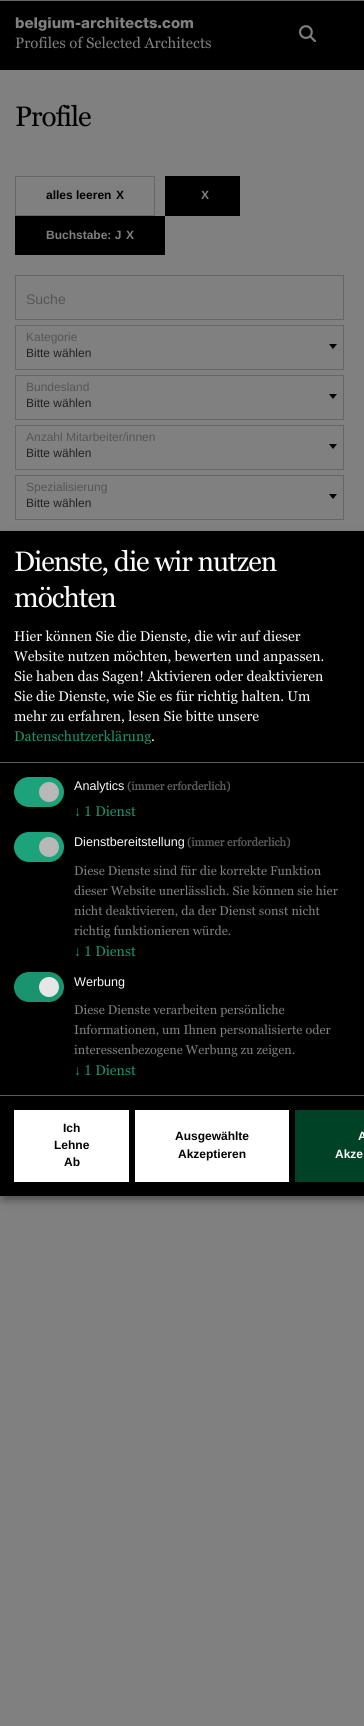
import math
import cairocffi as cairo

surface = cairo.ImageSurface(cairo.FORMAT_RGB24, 364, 1726)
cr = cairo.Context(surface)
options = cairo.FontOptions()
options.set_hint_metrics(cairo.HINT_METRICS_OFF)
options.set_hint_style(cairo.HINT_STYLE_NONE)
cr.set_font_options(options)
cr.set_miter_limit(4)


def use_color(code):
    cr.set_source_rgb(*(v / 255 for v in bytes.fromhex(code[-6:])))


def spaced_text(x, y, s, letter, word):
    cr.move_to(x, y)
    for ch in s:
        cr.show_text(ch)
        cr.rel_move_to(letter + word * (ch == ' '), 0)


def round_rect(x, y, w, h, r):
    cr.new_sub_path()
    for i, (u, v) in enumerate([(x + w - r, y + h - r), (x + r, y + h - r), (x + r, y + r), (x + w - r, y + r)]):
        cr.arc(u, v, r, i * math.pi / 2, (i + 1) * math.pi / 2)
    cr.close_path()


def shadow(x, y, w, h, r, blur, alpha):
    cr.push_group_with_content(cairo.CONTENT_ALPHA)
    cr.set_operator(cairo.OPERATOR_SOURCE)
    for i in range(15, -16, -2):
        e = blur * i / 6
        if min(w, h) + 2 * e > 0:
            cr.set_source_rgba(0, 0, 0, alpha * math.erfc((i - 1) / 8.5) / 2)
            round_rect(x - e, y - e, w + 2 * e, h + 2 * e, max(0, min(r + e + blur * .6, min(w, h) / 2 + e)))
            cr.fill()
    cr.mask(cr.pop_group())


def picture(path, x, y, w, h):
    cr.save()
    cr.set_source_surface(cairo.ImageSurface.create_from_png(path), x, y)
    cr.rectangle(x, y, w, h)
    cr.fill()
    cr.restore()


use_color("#808080")
cr.paint()
use_color("#000000")
cr.rectangle(0, 1, 364, 69)
cr.fill()
use_color("#666666")
cr.rectangle(0, 0, 364, 1)
cr.fill()
cr.select_font_face("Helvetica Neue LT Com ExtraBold")
cr.set_font_size(15)
use_color("#808080")
cr.move_to(15, 28)
cr.show_text("belgium-architects.com")
cr.select_font_face("Georgia")
cr.move_to(15, 48)
cr.show_text("Profiles of Selected Architects")
picture("img1.png", 299, 25, 17, 18)
cr.set_font_size(28)
use_color("#000000")
spaced_text(15, 126, "Profile", -1, 0)
cr.rectangle(15.5, 176.5, 139, 39)
use_color("#666666")
cr.set_line_width(1)
cr.stroke()
cr.select_font_face("Liberation Sans", cairo.FONT_SLANT_NORMAL, cairo.FONT_WEIGHT_BOLD)
cr.set_font_size(12)
use_color("#000000")
cr.move_to(46, 199)
cr.show_text("alles leeren")
cr.move_to(116, 199)
cr.show_text("X")
cr.rectangle(165, 176, 75, 40)
cr.fill()
use_color("#808080")
cr.move_to(201, 199)
cr.show_text("X")
use_color("#000000")
cr.rectangle(15, 216, 150, 39)
cr.fill()
use_color("#808080")
cr.move_to(46, 239)
cr.show_text("Buchstabe: J")
cr.move_to(126, 239)
cr.show_text("X")
cr.rectangle(15.5, 275.5, 328, 44)
use_color("#666666")
cr.stroke()
cr.select_font_face("Liberation Sans")
cr.set_font_size(14)
use_color("#555555")
cr.move_to(26, 304)
cr.show_text("Suche")
cr.set_font_size(12)
cr.move_to(26, 341)
cr.show_text("Kategorie")
cr.rectangle(15.5, 325.5, 328, 44)
use_color("#666666")
cr.stroke()
use_color("#000000")
cr.new_path()
cr.move_to(329, 344)
cr.line_to(337, 344)
cr.line_to(333, 349)
cr.close_path()
cr.fill()
use_color("#222222")
cr.move_to(26, 357)
cr.show_text("Bitte wählen")
use_color("#555555")
cr.move_to(26, 391)
cr.show_text("Bundesland")
cr.rectangle(15.5, 375.5, 328, 44)
use_color("#666666")
cr.stroke()
use_color("#000000")
cr.new_path()
cr.move_to(329, 394)
cr.line_to(337, 394)
cr.line_to(333, 399)
cr.close_path()
cr.fill()
use_color("#222222")
cr.move_to(26, 407)
cr.show_text("Bitte wählen")
use_color("#555555")
cr.move_to(26, 441)
cr.show_text("Anzahl Mitarbeiter/innen")
cr.rectangle(15.5, 425.5, 328, 44)
use_color("#666666")
cr.stroke()
use_color("#000000")
cr.new_path()
cr.move_to(329, 444)
cr.line_to(337, 444)
cr.line_to(333, 449)
cr.close_path()
cr.fill()
use_color("#222222")
cr.move_to(26, 457)
cr.show_text("Bitte wählen")
use_color("#555555")
cr.move_to(26, 491)
cr.show_text("Spezialisierung")
cr.rectangle(15.5, 475.5, 328, 44)
use_color("#666666")
cr.stroke()
use_color("#000000")
cr.new_path()
cr.move_to(329, 494)
cr.line_to(337, 494)
cr.line_to(333, 499)
cr.close_path()
cr.fill()
use_color("#222222")
cr.move_to(26, 507)
cr.show_text("Bitte wählen")
use_color("#000000")
shadow(5, 536, 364, 665, 0, 5, 0.19)
shadow(0, 535, 364, 665, 0, 3, 0.2)
use_color("#000000")
cr.rectangle(0, 531, 364, 665)
cr.fill()
use_color("#5c5c5c")
cr.rectangle(0, 762, 364, 1)
cr.fill()
cr.select_font_face("Georgia")
cr.set_font_size(28)
use_color("#fafafa")
spaced_text(14, 571, "Dienste, die wir nutzen", -1, 0)
spaced_text(14, 607, "möchten", -1, 0)
cr.set_font_size(14)
cr.move_to(14, 641)
cr.show_text("Hier können Sie die Dienste, die wir auf dieser")
cr.move_to(14, 661)
cr.show_text("Website nutzen möchten, bewerten und anpassen.")
cr.move_to(14, 681)
cr.show_text("Sie haben das Sagen! Aktivieren oder deaktivieren")
cr.move_to(14, 701)
cr.show_text("Sie die Dienste, wie Sie es für richtig halten. Um")
cr.move_to(14, 721)
cr.show_text("mehr zu erfahren, lesen Sie bitte unsere")
use_color("#1a936f")
cr.move_to(14, 741)
cr.show_text("Datenschutzerklärung")
use_color("#fafafa")
cr.move_to(151, 741)
cr.show_text(".")
use_color("#1da37b")
round_rect(14, 777, 50, 30, 15)
cr.fill()
use_color("#b8b8b8")
cr.arc(49, 792, 10, 0, 2 * math.pi)
cr.fill()
cr.select_font_face("Liberation Sans")
cr.set_font_size(12.6)
use_color("#fafafa")
cr.move_to(74, 790)
cr.show_text("Analytics")
cr.select_font_face("Georgia", cairo.FONT_SLANT_NORMAL, cairo.FONT_WEIGHT_BOLD)
cr.set_font_size(11.25)
use_color("#5c5c5c")
cr.move_to(127, 790)
cr.show_text("(immer erforderlich)")
cr.select_font_face("Liberation Serif")
cr.set_font_size(14)
use_color("#1a936f")
cr.move_to(74, 816)
cr.show_text("↓")
cr.select_font_face("Georgia")
cr.move_to(84, 816)
cr.show_text("1 Dienst")
use_color("#1da37b")
round_rect(14, 832, 50, 30, 15)
cr.fill()
use_color("#b8b8b8")
cr.arc(49, 847, 10, 0, 2 * math.pi)
cr.fill()
cr.select_font_face("Liberation Sans")
cr.set_font_size(12.6)
use_color("#fafafa")
cr.move_to(74, 846)
cr.show_text("Dienstbereitstellung")
cr.select_font_face("Georgia", cairo.FONT_SLANT_NORMAL, cairo.FONT_WEIGHT_BOLD)
cr.set_font_size(11.25)
use_color("#5c5c5c")
cr.move_to(187, 846)
cr.show_text("(immer erforderlich)")
cr.select_font_face("Georgia")
cr.set_font_size(12.6)
use_color("#808080")
cr.move_to(74, 875)
cr.show_text("Diese Dienste sind für die korrekte Funktion")
cr.move_to(74, 895)
cr.show_text("dieser Website unerlässlich. Sie können sie hier")
cr.move_to(74, 915)
cr.show_text("nicht deaktivieren, da der Dienst sonst nicht")
cr.move_to(74, 935)
cr.show_text("richtig funktionieren würde.")
cr.select_font_face("Liberation Serif")
cr.set_font_size(14)
use_color("#1a936f")
cr.move_to(74, 956)
cr.show_text("↓")
cr.select_font_face("Georgia")
cr.move_to(84, 956)
cr.show_text("1 Dienst")
round_rect(14, 972, 50, 30, 15)
cr.fill()
use_color("#e6e6e6")
cr.arc(49, 987, 10, 0, 2 * math.pi)
cr.fill()
cr.select_font_face("Liberation Sans")
cr.set_font_size(12.6)
use_color("#fafafa")
cr.move_to(74, 986)
cr.show_text("Werbung")
cr.select_font_face("Georgia")
use_color("#808080")
cr.move_to(74, 1014)
cr.show_text("Diese Dienste verarbeiten persönliche")
cr.move_to(74, 1034)
cr.show_text("Informationen, um Ihnen personalisierte oder")
cr.move_to(74, 1054)
cr.show_text("interessenbezogene Werbung zu zeigen.")
cr.select_font_face("Liberation Serif")
cr.set_font_size(14)
use_color("#1a936f")
cr.move_to(74, 1075)
cr.show_text("↓")
cr.select_font_face("Georgia")
cr.move_to(84, 1075)
cr.show_text("1 Dienst")
use_color("#5c5c5c")
cr.rectangle(0, 1095, 364, 1)
cr.fill()
use_color("#ffffff")
cr.rectangle(14, 1110, 115, 72)
cr.fill()
cr.select_font_face("Liberation Sans", cairo.FONT_SLANT_NORMAL, cairo.FONT_WEIGHT_BOLD)
cr.set_font_size(12)
use_color("#000000")
cr.move_to(63, 1132)
cr.show_text("Ich")
cr.move_to(54, 1149)
cr.show_text("Lehne")
cr.move_to(64, 1166)
cr.show_text("Ab")
use_color("#ffffff")
cr.rectangle(135, 1110, 154, 72)
cr.fill()
use_color("#000000")
cr.move_to(175, 1140)
cr.show_text("Ausgewählte")
cr.move_to(178, 1158)
cr.show_text("Akzeptieren")
use_color("#004225")
cr.rectangle(295, 1110, 69, 72)
cr.fill()
use_color("#fafafa")
cr.move_to(358, 1140)
cr.show_text("A")
cr.move_to(335, 1158)
cr.show_text("Akze")
surface.write_to_png("result.png")
